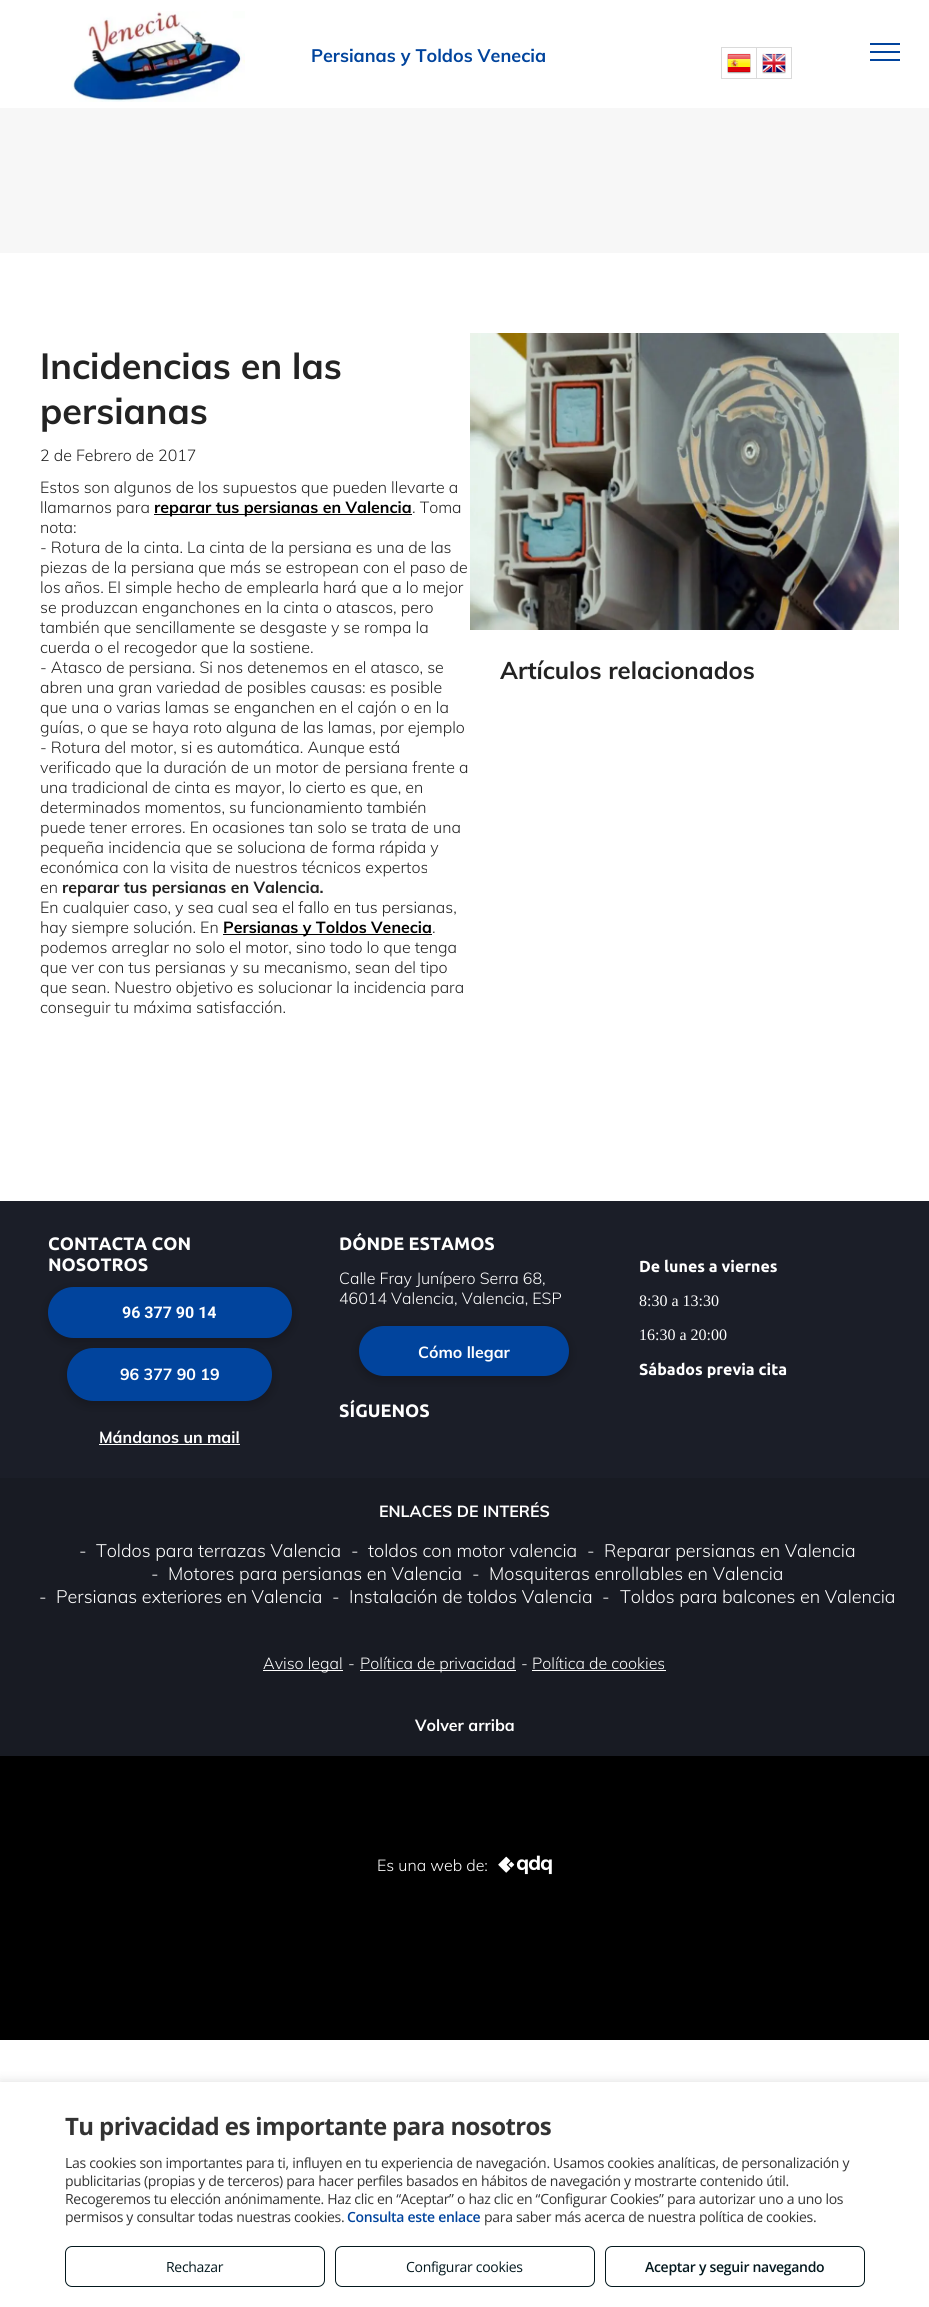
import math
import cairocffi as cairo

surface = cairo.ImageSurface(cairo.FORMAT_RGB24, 929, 2307)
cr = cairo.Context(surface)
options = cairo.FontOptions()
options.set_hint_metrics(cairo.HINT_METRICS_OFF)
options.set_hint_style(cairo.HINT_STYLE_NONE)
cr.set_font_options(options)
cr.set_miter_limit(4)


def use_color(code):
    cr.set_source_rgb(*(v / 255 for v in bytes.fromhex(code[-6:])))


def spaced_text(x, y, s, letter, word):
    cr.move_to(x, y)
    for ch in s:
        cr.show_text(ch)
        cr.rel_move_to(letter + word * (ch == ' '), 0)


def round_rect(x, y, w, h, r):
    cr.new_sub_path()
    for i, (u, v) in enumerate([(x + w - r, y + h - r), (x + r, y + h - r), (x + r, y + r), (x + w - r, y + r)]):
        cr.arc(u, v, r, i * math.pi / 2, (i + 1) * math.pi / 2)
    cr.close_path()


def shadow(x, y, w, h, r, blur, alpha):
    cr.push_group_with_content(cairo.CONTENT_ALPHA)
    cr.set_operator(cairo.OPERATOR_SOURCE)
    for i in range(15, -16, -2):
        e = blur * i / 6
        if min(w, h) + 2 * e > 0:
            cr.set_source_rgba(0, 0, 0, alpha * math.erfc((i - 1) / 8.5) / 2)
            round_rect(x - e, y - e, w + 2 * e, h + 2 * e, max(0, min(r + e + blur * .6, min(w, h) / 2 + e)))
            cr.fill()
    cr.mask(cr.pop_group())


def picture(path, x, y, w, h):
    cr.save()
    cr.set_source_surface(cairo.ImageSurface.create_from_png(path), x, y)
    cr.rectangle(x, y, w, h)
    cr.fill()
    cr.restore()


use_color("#ffffff")
cr.paint()
picture("img1.png", 71, 11, 174, 91)
cr.select_font_face("Muli", cairo.FONT_SLANT_NORMAL, cairo.FONT_WEIGHT_BOLD)
cr.set_font_size(18)
use_color("#01449d")
cr.move_to(311, 62)
cr.show_text("Persianas y Toldos Venecia")
use_color("#dadada")
cr.rectangle(721, 47, 35, 1)
cr.fill()
cr.rectangle(721, 78, 35, 1)
cr.fill()
cr.rectangle(721, 47, 1, 32)
cr.fill()
picture("img2.png", 727, 53, 24, 21)
cr.rectangle(756.5, 47.5, 35, 31)
cr.set_line_width(1)
cr.stroke()
picture("img3.png", 762, 53, 24, 21)
use_color("#01449d")
cr.rectangle(870, 43, 30, 2)
cr.fill()
cr.rectangle(870, 51, 30, 2)
cr.fill()
cr.rectangle(870, 59, 30, 2)
cr.fill()
use_color("#f7f7f7")
cr.rectangle(0, 108, 929, 145)
cr.fill()
cr.set_font_size(36)
use_color("#232323")
cr.move_to(40, 379)
cr.show_text("Incidencias en las")
cr.move_to(40, 424)
cr.show_text("persianas")
cr.select_font_face("Muli Light")
cr.set_font_size(16)
cr.move_to(40, 461)
cr.show_text("2 de Febrero de 2017")
cr.move_to(40, 493)
cr.show_text("Estos son algunos de los supuestos que pueden llevarte a")
cr.move_to(40, 513)
cr.show_text("llamarnos para")
use_color("#000000")
cr.rectangle(154, 514, 258, 1)
cr.fill()
cr.select_font_face("Muli", cairo.FONT_SLANT_NORMAL, cairo.FONT_WEIGHT_BOLD)
cr.move_to(154, 513)
cr.show_text("reparar tus persianas en Valencia")
cr.select_font_face("Muli Light")
use_color("#232323")
cr.move_to(412, 513)
cr.show_text(". Toma")
cr.move_to(40, 533)
cr.show_text("nota:")
cr.move_to(40, 553)
cr.show_text("- Rotura de la cinta. La cinta de la persiana es una de las")
cr.move_to(40, 573)
cr.show_text("piezas de la persiana que más se estropean con el paso de")
cr.move_to(40, 593)
cr.show_text("los años. El simple hecho de emplearla hará que a lo mejor")
cr.move_to(40, 613)
cr.show_text("se produzcan enganchones en la cinta o atascos, pero")
cr.move_to(40, 633)
cr.show_text("también que sencillamente se desgaste y se rompa la")
cr.move_to(40, 653)
cr.show_text("cuerda o el recogedor que la sostiene.")
cr.move_to(40, 673)
cr.show_text("- Atasco de persiana. Si nos detenemos en el atasco, se")
cr.move_to(40, 693)
cr.show_text("abren una gran variedad de posibles causas: es posible")
cr.move_to(40, 713)
cr.show_text("que una o varias lamas se enganchen en el cajón o en la")
cr.move_to(40, 733)
cr.show_text("guías, o que se haya roto alguna de las lamas, por ejemplo")
cr.move_to(40, 753)
cr.show_text("- Rotura del motor, si es automática. Aunque está")
cr.move_to(40, 773)
cr.show_text("verificado que la duración de un motor de persiana frente a")
cr.move_to(40, 793)
cr.show_text("una tradicional de cinta es mayor, lo cierto es que, en")
cr.move_to(40, 813)
cr.show_text("determinados momentos, su funcionamiento también")
cr.move_to(40, 833)
cr.show_text("puede tener errores. En ocasiones tan solo se trata de una")
cr.move_to(40, 853)
cr.show_text("pequeña incidencia que se soluciona de forma rápida y")
cr.move_to(40, 873)
cr.show_text("económica con la visita de nuestros técnicos expertos")
cr.move_to(40, 893)
cr.show_text("en")
cr.select_font_face("Muli", cairo.FONT_SLANT_NORMAL, cairo.FONT_WEIGHT_BOLD)
cr.move_to(62, 893)
cr.show_text("reparar tus persianas en Valencia.")
cr.select_font_face("Muli Light")
cr.move_to(40, 913)
cr.show_text("En cualquier caso, y sea cual sea el fallo en tus persianas,")
cr.move_to(40, 933)
cr.show_text("hay siempre solución. En")
use_color("#000000")
cr.rectangle(223, 934, 209, 1)
cr.fill()
cr.select_font_face("Muli", cairo.FONT_SLANT_NORMAL, cairo.FONT_WEIGHT_BOLD)
cr.move_to(223, 933)
cr.show_text("Persianas y Toldos Venecia")
cr.select_font_face("Muli Light")
use_color("#232323")
cr.move_to(432, 933)
cr.show_text(".")
cr.move_to(40, 953)
cr.show_text("podemos arreglar no solo el motor, sino todo lo que tenga")
cr.move_to(40, 973)
cr.show_text("que ver con tus persianas y su mecanismo, sean del tipo")
cr.move_to(40, 993)
cr.show_text("que sean. Nuestro objetivo es solucionar la incidencia para")
cr.move_to(40, 1013)
cr.show_text("conseguir tu máxima satisfacción.")
picture("img4.png", 470, 333, 429, 297)
cr.select_font_face("Muli", cairo.FONT_SLANT_NORMAL, cairo.FONT_WEIGHT_BOLD)
cr.set_font_size(24)
cr.move_to(500, 679)
cr.show_text("Artículos relacionados")
use_color("#1b1e28")
cr.rectangle(0, 1201, 929, 277)
cr.fill()
cr.select_font_face("Ubuntu", cairo.FONT_SLANT_NORMAL, cairo.FONT_WEIGHT_BOLD)
cr.set_font_size(18)
use_color("#ffffff")
cr.move_to(48, 1250)
cr.show_text("CONTACTA CON")
cr.move_to(48, 1271)
cr.show_text("NOSOTROS")
use_color("#000000")
shadow(48, 1290, 244, 51, 25.5, 5.5, 0.25)
use_color("#01449d")
round_rect(48, 1287, 244, 51, 25.5)
cr.fill()
cr.select_font_face("Roboto", cairo.FONT_SLANT_NORMAL, cairo.FONT_WEIGHT_BOLD)
cr.set_font_size(16)
use_color("#ffffff")
cr.move_to(122, 1318)
cr.show_text("96 377 90 14")
use_color("#000000")
shadow(67, 1351, 205, 53, 26.5, 5.5, 0.25)
use_color("#01449d")
round_rect(67, 1348, 205, 53, 26.5)
cr.fill()
cr.select_font_face("Muli", cairo.FONT_SLANT_NORMAL, cairo.FONT_WEIGHT_BOLD)
use_color("#ffffff")
cr.move_to(120, 1380)
cr.show_text("96 377 90 19")
cr.move_to(99, 1443)
cr.show_text("Mándanos un mail")
cr.rectangle(99, 1444, 141, 1)
cr.fill()
cr.select_font_face("Ubuntu", cairo.FONT_SLANT_NORMAL, cairo.FONT_WEIGHT_BOLD)
cr.set_font_size(18)
cr.move_to(339, 1250)
cr.show_text("DÓNDE ESTAMOS")
cr.select_font_face("Muli Light")
cr.set_font_size(16)
cr.move_to(339, 1284)
cr.show_text("Calle Fray Junípero Serra 68,")
cr.move_to(339, 1304)
cr.show_text("46014 Valencia, Valencia, ESP")
use_color("#000000")
shadow(359, 1329, 210, 50, 25, 5.5, 0.25)
use_color("#01449d")
round_rect(359, 1326, 210, 50, 25)
cr.fill()
cr.select_font_face("Muli", cairo.FONT_SLANT_NORMAL, cairo.FONT_WEIGHT_BOLD)
use_color("#ffffff")
cr.move_to(418, 1358)
cr.show_text("Cómo llegar")
cr.select_font_face("Ubuntu", cairo.FONT_SLANT_NORMAL, cairo.FONT_WEIGHT_BOLD)
cr.set_font_size(18)
cr.move_to(339, 1417)
cr.show_text("SÍGUENOS")
cr.set_font_size(16)
cr.move_to(639, 1272)
cr.show_text("De lunes a viernes")
cr.select_font_face("Liberation Serif")
cr.move_to(639, 1306)
cr.show_text("8:30 a 13:30")
cr.move_to(639, 1340)
cr.show_text("16:30 a 20:00")
cr.select_font_face("Ubuntu", cairo.FONT_SLANT_NORMAL, cairo.FONT_WEIGHT_BOLD)
cr.move_to(639, 1375)
cr.show_text("Sábados previa cita")
use_color("#181b23")
cr.rectangle(0, 1478, 929, 278)
cr.fill()
cr.select_font_face("Muli", cairo.FONT_SLANT_NORMAL, cairo.FONT_WEIGHT_BOLD)
use_color("#ffffff")
cr.move_to(379, 1517)
cr.show_text("ENLACES DE INTERÉS")
cr.select_font_face("Muli Light")
cr.set_font_size(18)
cr.move_to(79, 1557)
cr.show_text("-")
cr.move_to(96, 1557)
cr.show_text("Toldos para terrazas Valencia")
cr.move_to(351, 1557)
cr.show_text("-")
cr.move_to(368, 1557)
cr.show_text("toldos con motor valencia")
cr.move_to(587, 1557)
cr.show_text("-")
cr.move_to(604, 1557)
cr.show_text("Reparar persianas en Valencia")
cr.move_to(151, 1580)
cr.show_text("-")
cr.move_to(168, 1580)
cr.show_text("Motores para persianas en Valencia")
cr.move_to(472, 1580)
cr.show_text("-")
cr.move_to(489, 1580)
cr.show_text("Mosquiteras enrollables en Valencia")
cr.move_to(39, 1603)
cr.show_text("-")
cr.move_to(56, 1603)
cr.show_text("Persianas exteriores en Valencia")
cr.move_to(332, 1603)
cr.show_text("-")
cr.move_to(349, 1603)
cr.show_text("Instalación de toldos Valencia")
cr.move_to(602, 1603)
cr.show_text("-")
cr.move_to(620, 1603)
cr.show_text("Toldos para balcones en Valencia")
cr.rectangle(263, 1670, 80, 1)
cr.fill()
cr.set_font_size(16)
cr.move_to(263, 1669)
cr.show_text("Aviso legal")
cr.move_to(348, 1669)
cr.show_text("-")
cr.rectangle(360, 1670, 156, 1)
cr.fill()
cr.move_to(360, 1669)
cr.show_text("Política de privacidad")
cr.move_to(521, 1669)
cr.show_text("-")
cr.move_to(532, 1669)
cr.show_text("Política de cookies")
cr.rectangle(532, 1670, 134, 1)
cr.fill()
cr.select_font_face("Muli", cairo.FONT_SLANT_NORMAL, cairo.FONT_WEIGHT_BOLD)
cr.move_to(415, 1731)
cr.show_text("Volver arriba")
use_color("#000000")
cr.rectangle(0, 1756, 929, 284)
cr.fill()
cr.select_font_face("Muli Light")
use_color("#ffffff")
cr.move_to(377, 1871)
cr.show_text("Es una web de:")
picture("img5.png", 498, 1855, 54, 20)
use_color("#000000")
shadow(0, 2080, 929, 225, 0, 5, 0.1)
use_color("#ffffff")
cr.rectangle(0, 2082, 929, 225)
cr.fill()
cr.select_font_face("Open Sans", cairo.FONT_SLANT_NORMAL, cairo.FONT_WEIGHT_BOLD)
cr.set_font_size(24)
use_color("#333333")
spaced_text(65, 2135, "Tu privacidad es importante para nosotros", -0.6, 0)
cr.select_font_face("Open Sans")
cr.set_font_size(14)
spaced_text(65, 2168, "Las cookies son importantes para ti, influyen en tu experiencia de navegación. Usamos cookies analíticas, de personalización y", -0.3, 0)
spaced_text(65, 2186, "publicitarias (propias y de terceros) para hacer perfiles basados en hábitos de navegación y mostrarte contenido útil.", -0.3, 0)
spaced_text(65, 2204, "Recogeremos tu elección anónimamente. Haz clic en “Aceptar” o haz clic en “Configurar Cookies” para autorizar uno a uno los", -0.3, 0)
spaced_text(65, 2222, "permisos y consultar todas nuestras cookies.", -0.3, 0)
cr.select_font_face("Open Sans SemiBold")
use_color("#01449d")
spaced_text(347, 2222, "Consulta este enlace", -0.3, 0)
cr.select_font_face("Open Sans")
use_color("#333333")
spaced_text(484, 2222, "para saber más acerca de nuestra política de cookies.", -0.3, 0)
round_rect(65.5, 2246.5, 259, 40, 6.5)
use_color("#03181e")
cr.stroke()
spaced_text(166, 2272, "Rechazar", -0.3, 0)
round_rect(335.5, 2246.5, 259, 40, 6.5)
cr.stroke()
spaced_text(406, 2272, "Configurar cookies", -0.3, 0)
round_rect(605.5, 2246.5, 259, 40, 6.5)
cr.stroke()
cr.select_font_face("Open Sans SemiBold")
spaced_text(645, 2272, "Aceptar y seguir navegando", -0.3, 0)
surface.write_to_png("result.png")
